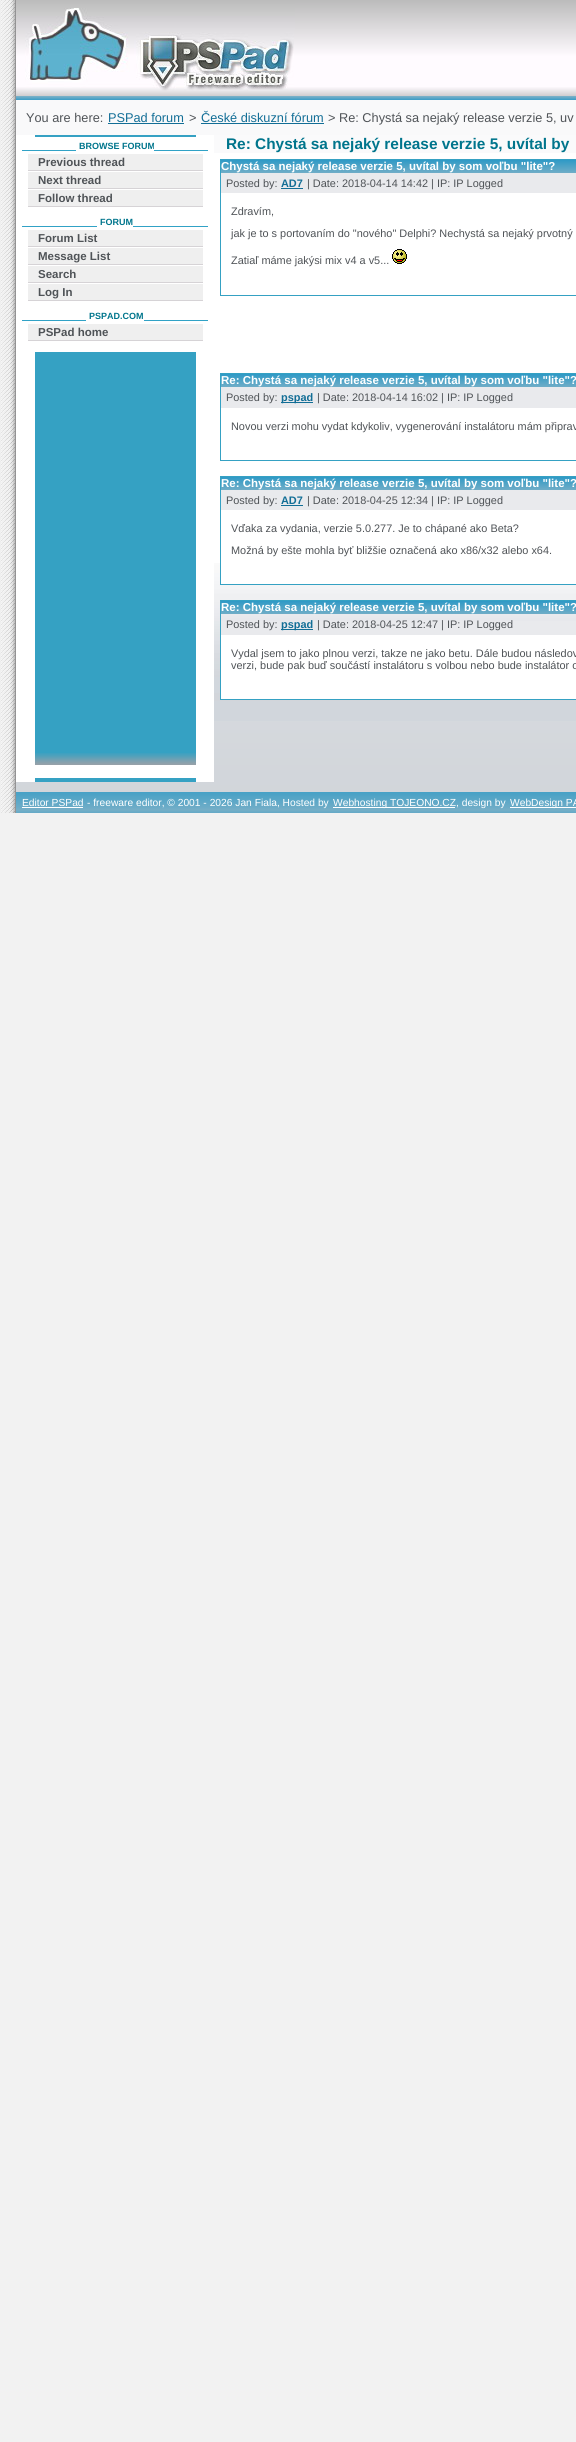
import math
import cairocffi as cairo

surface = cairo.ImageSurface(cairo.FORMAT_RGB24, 576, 2442)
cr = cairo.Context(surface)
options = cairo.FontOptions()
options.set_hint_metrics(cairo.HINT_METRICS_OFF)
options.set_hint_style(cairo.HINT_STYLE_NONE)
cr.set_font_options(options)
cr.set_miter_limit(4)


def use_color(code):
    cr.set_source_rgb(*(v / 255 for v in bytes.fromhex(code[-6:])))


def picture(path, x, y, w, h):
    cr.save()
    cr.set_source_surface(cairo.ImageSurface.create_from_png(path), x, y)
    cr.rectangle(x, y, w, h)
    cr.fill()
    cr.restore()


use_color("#f2f2f2")
cr.paint()
picture("img1.png", 0, 0, 16, 813)
use_color("#fafafb")
cr.rectangle(214, 135, 362, 18)
cr.fill()
picture("img2.png", 16, 721, 560, 71)
picture("img3.png", 16, 0, 560, 100)
picture("img4.png", 25, 30, 269, 61)
picture("img5.png", 17, 3, 278, 27)
picture("img6.png", 16, 135, 198, 647)
use_color("#f9f9fa")
cr.rectangle(16, 100, 560, 35)
cr.fill()
cr.select_font_face("Liberation Sans")
cr.set_font_size(12.75)
use_color("#4f5357")
cr.move_to(26, 122)
cr.show_text("You are here:")
use_color("#126e96")
cr.move_to(108, 122)
cr.show_text("PSPad forum")
cr.rectangle(108, 123, 76, 1)
cr.fill()
use_color("#4f5357")
cr.move_to(189, 122)
cr.show_text(">")
use_color("#126e96")
cr.move_to(201, 122)
cr.show_text("České diskuzní fórum")
cr.rectangle(201, 123, 123, 1)
cr.fill()
use_color("#4f5357")
cr.move_to(328, 122)
cr.show_text("> Re: Chystá sa nejaký release verzie 5, uv")
use_color("#ffffff")
cr.rectangle(35, 137, 161, 215)
cr.fill()
use_color("#31a2c6")
cr.rectangle(22, 150, 186, 1)
cr.fill()
cr.select_font_face("Liberation Sans", cairo.FONT_SLANT_NORMAL, cairo.FONT_WEIGHT_BOLD)
cr.set_font_size(9)
use_color("#00758c")
cr.move_to(79, 149)
cr.show_text("BROWSE FORUM")
use_color("#ffffff")
cr.rectangle(76, 150, 78, 1)
cr.fill()
use_color("#efefef")
cr.rectangle(28, 154, 175, 16)
cr.fill()
use_color("#d6d3d6")
cr.rectangle(28, 170, 175, 1)
cr.fill()
cr.set_font_size(11.5)
use_color("#4f5357")
cr.move_to(38, 166)
cr.show_text("Previous thread")
use_color("#efefef")
cr.rectangle(28, 172, 175, 16)
cr.fill()
use_color("#d6d3d6")
cr.rectangle(28, 188, 175, 1)
cr.fill()
use_color("#4f5357")
cr.move_to(38, 184)
cr.show_text("Next thread")
use_color("#efefef")
cr.rectangle(28, 190, 175, 16)
cr.fill()
use_color("#d6d3d6")
cr.rectangle(28, 206, 175, 1)
cr.fill()
use_color("#4f5357")
cr.move_to(38, 202)
cr.show_text("Follow thread")
use_color("#31a2c6")
cr.rectangle(22, 226, 186, 1)
cr.fill()
cr.set_font_size(9)
use_color("#00758c")
cr.move_to(100, 225)
cr.show_text("FORUM")
use_color("#ffffff")
cr.rectangle(97, 226, 36, 1)
cr.fill()
use_color("#efefef")
cr.rectangle(28, 230, 175, 16)
cr.fill()
use_color("#d6d3d6")
cr.rectangle(28, 246, 175, 1)
cr.fill()
cr.set_font_size(11.5)
use_color("#4f5357")
cr.move_to(38, 242)
cr.show_text("Forum List")
use_color("#efefef")
cr.rectangle(28, 248, 175, 16)
cr.fill()
use_color("#d6d3d6")
cr.rectangle(28, 264, 175, 1)
cr.fill()
use_color("#4f5357")
cr.move_to(38, 260)
cr.show_text("Message List")
use_color("#efefef")
cr.rectangle(28, 266, 175, 16)
cr.fill()
use_color("#d6d3d6")
cr.rectangle(28, 282, 175, 1)
cr.fill()
use_color("#4f5357")
cr.move_to(38, 278)
cr.show_text("Search")
use_color("#efefef")
cr.rectangle(28, 284, 175, 16)
cr.fill()
use_color("#d6d3d6")
cr.rectangle(28, 300, 175, 1)
cr.fill()
use_color("#4f5357")
cr.move_to(38, 296)
cr.show_text("Log In")
use_color("#31a2c6")
cr.rectangle(22, 320, 186, 1)
cr.fill()
cr.set_font_size(9)
use_color("#00758c")
cr.move_to(89, 319)
cr.show_text("PSPAD.COM")
use_color("#ffffff")
cr.rectangle(86, 320, 58, 1)
cr.fill()
use_color("#efefef")
cr.rectangle(28, 324, 175, 16)
cr.fill()
use_color("#d6d3d6")
cr.rectangle(28, 340, 175, 1)
cr.fill()
cr.set_font_size(11.5)
use_color("#4f5357")
cr.move_to(38, 336)
cr.show_text("PSPad home")
cr.set_font_size(15.4)
use_color("#00758c")
cr.move_to(226, 149)
cr.show_text("Re: Chystá sa nejaký release verzie 5, uvítal by")
use_color("#ffffff")
cr.rectangle(214, 153, 362, 410)
cr.fill()
picture("img7.png", 214, 563, 362, 158)
cr.rectangle(220.5, 159.5, 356, 136)
use_color("#35a1c3")
cr.set_line_width(1)
cr.stroke()
picture("img8.png", 221, 160, 355, 13)
cr.set_font_size(11.5)
use_color("#ffffff")
cr.move_to(221, 170)
cr.show_text("Chystá sa nejaký release verzie 5, uvítal by som voľbu \"lite\"?")
use_color("#e9eaed")
cr.rectangle(221, 173, 355, 20)
cr.fill()
cr.select_font_face("Liberation Sans")
cr.set_font_size(10.9)
use_color("#4f5357")
cr.move_to(226, 187)
cr.show_text("Posted by:")
cr.select_font_face("Liberation Sans", cairo.FONT_SLANT_NORMAL, cairo.FONT_WEIGHT_BOLD)
use_color("#126e96")
cr.move_to(281, 187)
cr.show_text("AD7")
cr.rectangle(281, 188, 22, 1)
cr.fill()
cr.select_font_face("Liberation Sans")
use_color("#4f5357")
cr.move_to(307, 187)
cr.show_text("| Date: 2018-04-14 14:42 | IP: IP Logged")
cr.move_to(231, 215)
cr.show_text("Zdravím,")
cr.move_to(231, 237)
cr.show_text("jak je to s portovaním do \"nového\" Delphi? Nechystá sa nejaký prvotný")
cr.move_to(231, 264)
cr.show_text("Zatiaľ máme jakýsi mix v4 a v5...")
picture("img9.png", 392, 249, 15, 15)
cr.rectangle(220.5, 373.5, 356, 87)
use_color("#35a1c3")
cr.stroke()
picture("img8.png", 221, 374, 355, 13)
cr.select_font_face("Liberation Sans", cairo.FONT_SLANT_NORMAL, cairo.FONT_WEIGHT_BOLD)
cr.set_font_size(11.5)
use_color("#ffffff")
cr.move_to(221, 384)
cr.show_text("Re: Chystá sa nejaký release verzie 5, uvítal by som voľbu \"lite\"?")
use_color("#e9eaed")
cr.rectangle(221, 387, 355, 21)
cr.fill()
cr.select_font_face("Liberation Sans")
cr.set_font_size(10.9)
use_color("#4f5357")
cr.move_to(226, 401)
cr.show_text("Posted by:")
use_color("#126e96")
cr.rectangle(281, 402, 32, 1)
cr.fill()
cr.select_font_face("Liberation Sans", cairo.FONT_SLANT_NORMAL, cairo.FONT_WEIGHT_BOLD)
cr.move_to(281, 401)
cr.show_text("pspad")
cr.select_font_face("Liberation Sans")
use_color("#4f5357")
cr.move_to(317, 401)
cr.show_text("| Date: 2018-04-14 16:02 | IP: IP Logged")
cr.move_to(231, 430)
cr.show_text("Novou verzi mohu vydat kdykoliv, vygenerování instalátoru mám připrav")
cr.rectangle(220.5, 476.5, 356, 108)
use_color("#35a1c3")
cr.stroke()
picture("img8.png", 221, 477, 355, 13)
cr.select_font_face("Liberation Sans", cairo.FONT_SLANT_NORMAL, cairo.FONT_WEIGHT_BOLD)
cr.set_font_size(11.5)
use_color("#ffffff")
cr.move_to(221, 487)
cr.show_text("Re: Chystá sa nejaký release verzie 5, uvítal by som voľbu \"lite\"?")
use_color("#e9eaed")
cr.rectangle(221, 490, 355, 20)
cr.fill()
cr.select_font_face("Liberation Sans")
cr.set_font_size(10.9)
use_color("#4f5357")
cr.move_to(226, 504)
cr.show_text("Posted by:")
cr.select_font_face("Liberation Sans", cairo.FONT_SLANT_NORMAL, cairo.FONT_WEIGHT_BOLD)
use_color("#126e96")
cr.move_to(281, 504)
cr.show_text("AD7")
cr.rectangle(281, 505, 22, 1)
cr.fill()
cr.select_font_face("Liberation Sans")
use_color("#4f5357")
cr.move_to(307, 504)
cr.show_text("| Date: 2018-04-25 12:34 | IP: IP Logged")
cr.move_to(231, 532)
cr.show_text("Vďaka za vydania, verzie 5.0.277. Je to chápané ako Beta?")
cr.move_to(231, 554)
cr.show_text("Možná by ešte mohla byť bližšie označená ako x86/x32 alebo x64.")
use_color("#ffffff")
cr.rectangle(221, 563, 355, 21)
cr.fill()
cr.rectangle(220.5, 600.5, 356, 99)
use_color("#35a1c3")
cr.stroke()
picture("img8.png", 221, 601, 355, 13)
cr.select_font_face("Liberation Sans", cairo.FONT_SLANT_NORMAL, cairo.FONT_WEIGHT_BOLD)
cr.set_font_size(11.5)
use_color("#ffffff")
cr.move_to(221, 611)
cr.show_text("Re: Chystá sa nejaký release verzie 5, uvítal by som voľbu \"lite\"?")
use_color("#e9eaed")
cr.rectangle(221, 621, 355, 14)
cr.fill()
cr.select_font_face("Liberation Sans")
cr.set_font_size(10.9)
use_color("#4f5357")
cr.move_to(226, 628)
cr.show_text("Posted by:")
use_color("#126e96")
cr.rectangle(281, 629, 32, 1)
cr.fill()
cr.select_font_face("Liberation Sans", cairo.FONT_SLANT_NORMAL, cairo.FONT_WEIGHT_BOLD)
cr.move_to(281, 628)
cr.show_text("pspad")
cr.select_font_face("Liberation Sans")
use_color("#4f5357")
cr.move_to(317, 628)
cr.show_text("| Date: 2018-04-25 12:47 | IP: IP Logged")
use_color("#ffffff")
cr.rectangle(221, 635, 355, 64)
cr.fill()
use_color("#4f5357")
cr.move_to(231, 657)
cr.show_text("Vydal jsem to jako plnou verzi, takze ne jako betu. Dále budou následov")
cr.move_to(231, 669)
cr.show_text("verzi, bude pak buď součástí instalátoru s volbou nebo bude instalátor o")
picture("img10.png", 35, 753, 161, 25)
picture("img11.png", 16, 792, 560, 21)
cr.set_font_size(10.25)
use_color("#ffffff")
cr.move_to(22, 806)
cr.show_text("Editor PSPad")
cr.rectangle(22, 807, 61, 1)
cr.fill()
cr.move_to(87, 806)
cr.show_text("- freeware editor, © 2001 - 2026 Jan Fiala, Hosted by")
cr.rectangle(333, 807, 122, 1)
cr.fill()
cr.move_to(333, 806)
cr.show_text("Webhosting TOJEONO.CZ")
cr.move_to(456, 806)
cr.show_text(", design by")
cr.rectangle(510, 807, 66, 1)
cr.fill()
cr.move_to(510, 806)
cr.show_text("WebDesign PA")
surface.write_to_png("result.png")
